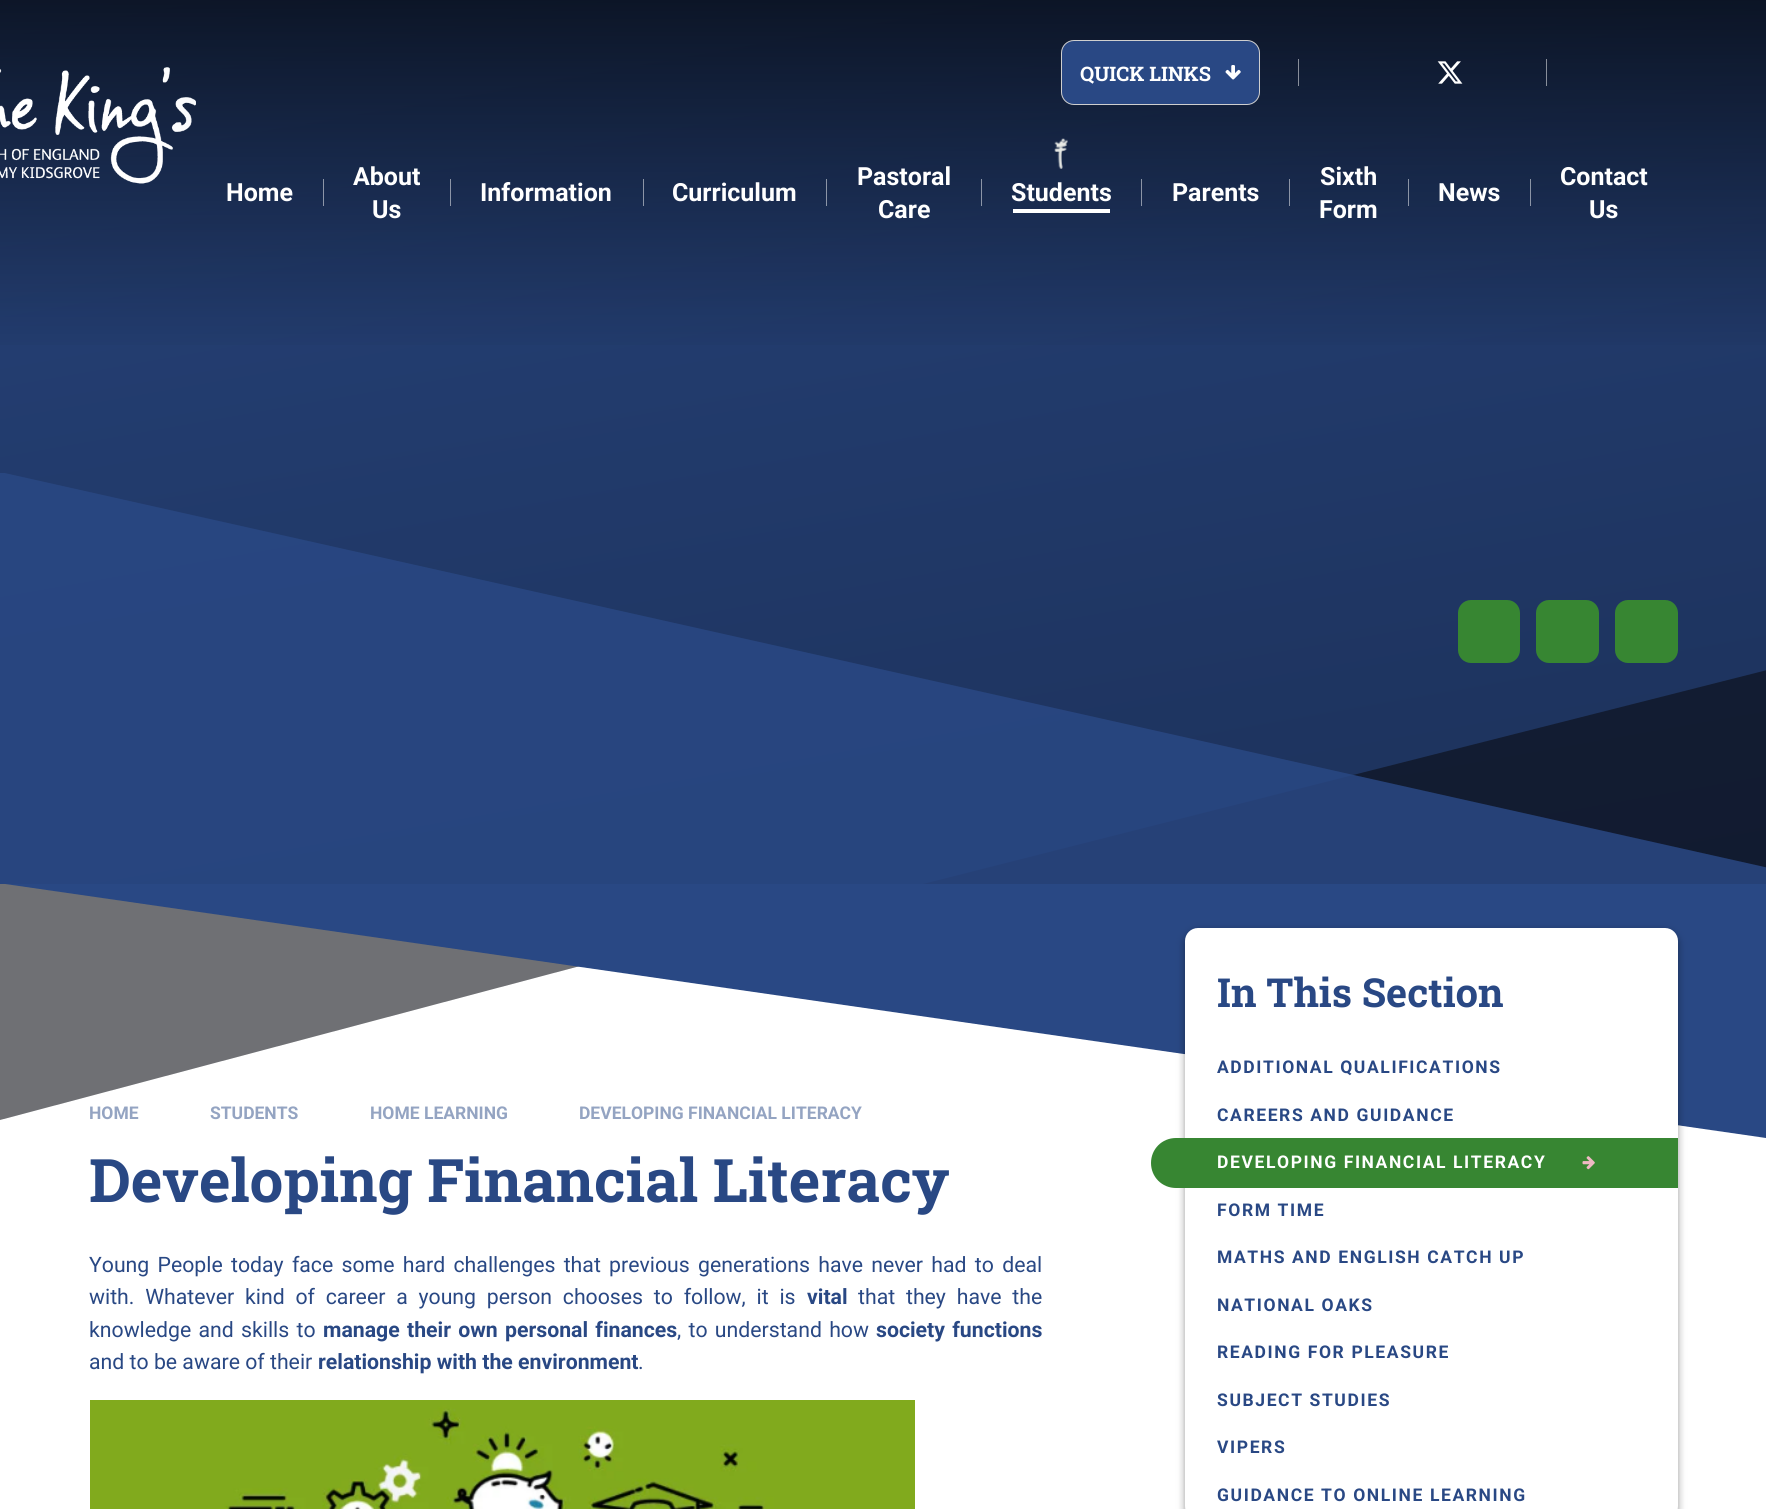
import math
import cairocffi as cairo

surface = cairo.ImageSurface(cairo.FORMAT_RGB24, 1766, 1509)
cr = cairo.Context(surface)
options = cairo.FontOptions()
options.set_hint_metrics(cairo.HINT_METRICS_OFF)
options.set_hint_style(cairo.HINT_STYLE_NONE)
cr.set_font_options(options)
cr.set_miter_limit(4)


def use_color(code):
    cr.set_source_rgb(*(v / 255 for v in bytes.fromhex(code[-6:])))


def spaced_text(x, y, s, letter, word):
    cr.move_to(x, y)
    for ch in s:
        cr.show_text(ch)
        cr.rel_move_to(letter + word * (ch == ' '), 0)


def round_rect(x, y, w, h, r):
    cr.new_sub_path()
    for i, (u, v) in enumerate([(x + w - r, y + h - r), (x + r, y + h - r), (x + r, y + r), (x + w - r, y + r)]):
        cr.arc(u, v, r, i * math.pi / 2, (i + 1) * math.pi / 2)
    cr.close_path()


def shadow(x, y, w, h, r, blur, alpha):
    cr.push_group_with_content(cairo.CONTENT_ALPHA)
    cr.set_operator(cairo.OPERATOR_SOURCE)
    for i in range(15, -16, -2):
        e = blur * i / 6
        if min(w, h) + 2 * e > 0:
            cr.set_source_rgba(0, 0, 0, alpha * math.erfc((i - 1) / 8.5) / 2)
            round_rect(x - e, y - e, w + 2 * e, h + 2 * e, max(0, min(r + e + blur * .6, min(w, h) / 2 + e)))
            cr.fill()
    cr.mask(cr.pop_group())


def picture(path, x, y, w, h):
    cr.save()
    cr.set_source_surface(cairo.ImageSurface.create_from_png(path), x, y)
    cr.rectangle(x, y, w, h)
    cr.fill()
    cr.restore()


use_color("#ffffff")
cr.paint()
gradient = cairo.LinearGradient(781, -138, 985, 1021)
gradient.add_color_stop_rgba(0, 0.149, 0.259, 0.475, 1)
gradient.add_color_stop_rgba(1, 0.11, 0.192, 0.353, 1)
cr.set_source(gradient)
cr.rectangle(0, 0, 1766, 884)
cr.fill()
gradient = cairo.LinearGradient(883, 0, 883, 356)
gradient.add_color_stop_rgba(0, 0, 0, 0, 0.67)
gradient.add_color_stop_rgba(1, 0, 0, 0, 0)
cr.set_source(gradient)
cr.rectangle(0, 0, 1766, 345)
cr.fill()
cr.save()
cr.rectangle(0, 473, 1766, 411)
cr.clip()
cr.set_source_rgba(0.043, 0.051, 0.075, 0.59)
cr.new_path()
cr.move_to(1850, 649)
cr.line_to(919, 885)
cr.line_to(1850, 885)
cr.close_path()
cr.fill()
cr.set_source_rgba(0.161, 0.282, 0.518, 0.85)
cr.new_path()
cr.move_to(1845, 885)
cr.line_to(0, 472)
cr.line_to(0, 885)
cr.close_path()
cr.fill()
cr.restore()
use_color("#378632")
round_rect(1458, 600, 62, 63, 13)
cr.fill()
round_rect(1536, 600, 63, 63, 13)
cr.fill()
round_rect(1615, 600, 63, 63, 13)
cr.fill()
picture("img1.png", 0, 67, 196, 117)
use_color("#294884")
round_rect(1061.5, 40.5, 198, 64, 12.5)
cr.fill_preserve()
use_color("#cfcfcf")
cr.set_line_width(1)
cr.stroke()
cr.select_font_face("Roboto Slab", cairo.FONT_SLANT_NORMAL, cairo.FONT_WEIGHT_BOLD)
cr.set_font_size(20)
use_color("#ffffff")
cr.move_to(1080, 81)
cr.show_text("QUICK LINKS")
picture("img2.png", 1225, 65, 16, 15)
cr.set_source_rgba(1, 1, 1, 0.5)
cr.rectangle(1546, 59, 1, 27)
cr.fill()
cr.rectangle(1298, 59, 1, 27)
cr.fill()
picture("img3.png", 1437, 61, 26, 23)
cr.select_font_face("Roboto", cairo.FONT_SLANT_NORMAL, cairo.FONT_WEIGHT_BOLD)
cr.set_font_size(25)
use_color("#ffffff")
cr.move_to(226, 201)
cr.show_text("Home")
cr.set_source_rgba(1, 1, 1, 0.5)
cr.rectangle(323, 179, 1, 27)
cr.fill()
use_color("#ffffff")
cr.move_to(353, 185)
cr.show_text("About")
cr.move_to(372, 218)
cr.show_text("Us")
cr.set_source_rgba(1, 1, 1, 0.5)
cr.rectangle(450, 179, 1, 27)
cr.fill()
use_color("#ffffff")
cr.move_to(480, 201)
cr.show_text("Information")
cr.set_source_rgba(1, 1, 1, 0.5)
cr.rectangle(643, 179, 1, 27)
cr.fill()
use_color("#ffffff")
cr.move_to(672, 201)
cr.show_text("Curriculum")
cr.set_source_rgba(1, 1, 1, 0.5)
cr.rectangle(826, 179, 1, 27)
cr.fill()
use_color("#ffffff")
cr.move_to(857, 185)
cr.show_text("Pastoral")
cr.move_to(878, 218)
cr.show_text("Care")
cr.set_source_rgba(1, 1, 1, 0.5)
cr.rectangle(981, 179, 1, 27)
cr.fill()
picture("img4.png", 1054, 138, 14, 31)
use_color("#ffffff")
cr.move_to(1011, 201)
cr.show_text("Students")
cr.rectangle(1013, 209, 97, 4)
cr.fill()
cr.set_source_rgba(1, 1, 1, 0.5)
cr.rectangle(1141, 179, 1, 27)
cr.fill()
use_color("#ffffff")
cr.move_to(1172, 201)
cr.show_text("Parents")
cr.set_source_rgba(1, 1, 1, 0.5)
cr.rectangle(1289, 179, 1, 27)
cr.fill()
use_color("#ffffff")
cr.move_to(1320, 185)
cr.show_text("Sixth")
cr.move_to(1319, 218)
cr.show_text("Form")
cr.set_source_rgba(1, 1, 1, 0.5)
cr.rectangle(1408, 179, 1, 27)
cr.fill()
use_color("#ffffff")
cr.move_to(1438, 201)
cr.show_text("News")
cr.set_source_rgba(1, 1, 1, 0.5)
cr.rectangle(1530, 179, 1, 27)
cr.fill()
use_color("#ffffff")
cr.move_to(1560, 185)
cr.show_text("Contact")
cr.move_to(1589, 218)
cr.show_text("Us")
use_color("#6f7074")
cr.new_path()
cr.move_to(0, 1120)
cr.line_to(889, 884)
cr.line_to(0, 884)
cr.close_path()
cr.fill()
use_color("#294884")
cr.new_path()
cr.move_to(5, 884)
cr.line_to(1766, 1138)
cr.line_to(1766, 884)
cr.close_path()
cr.fill()
cr.set_font_size(17.5)
use_color("#94a4c2")
cr.move_to(89, 1119)
cr.show_text("HOME")
cr.move_to(210, 1119)
cr.show_text("STUDENTS")
cr.move_to(370, 1119)
cr.show_text("HOME LEARNING")
cr.move_to(579, 1119)
cr.show_text("DEVELOPING FINANCIAL LITERACY")
cr.select_font_face("Roboto Slab", cairo.FONT_SLANT_NORMAL, cairo.FONT_WEIGHT_BOLD)
cr.set_font_size(60)
use_color("#294884")
cr.move_to(89, 1202)
cr.show_text("Developing Financial Literacy")
cr.select_font_face("Roboto")
cr.set_font_size(21.25)
spaced_text(89, 1272, "Young People today face some hard challenges that previous generations have never had to deal", 0, 3)
spaced_text(89, 1304, "with. Whatever kind of career a young person chooses to follow, it is", 0, 5.5)
cr.select_font_face("Roboto", cairo.FONT_SLANT_NORMAL, cairo.FONT_WEIGHT_BOLD)
cr.move_to(807, 1304)
cr.show_text("vital")
cr.select_font_face("Roboto")
spaced_text(858, 1304, "that they have the", 0, 5.5)
spaced_text(89, 1337, "knowledge and skills to", 0, 2)
cr.select_font_face("Roboto", cairo.FONT_SLANT_NORMAL, cairo.FONT_WEIGHT_BOLD)
spaced_text(323, 1337, "manage their own personal finances", 0, 2)
cr.select_font_face("Roboto")
spaced_text(677, 1337, ", to understand how", 0, 2)
cr.select_font_face("Roboto", cairo.FONT_SLANT_NORMAL, cairo.FONT_WEIGHT_BOLD)
spaced_text(876, 1337, "society functions", 0, 2)
cr.select_font_face("Roboto")
cr.move_to(89, 1369)
cr.show_text("and to be aware of their")
cr.select_font_face("Roboto", cairo.FONT_SLANT_NORMAL, cairo.FONT_WEIGHT_BOLD)
cr.move_to(318, 1369)
cr.show_text("relationship with the environment")
cr.select_font_face("Roboto")
cr.move_to(638, 1369)
cr.show_text(".")
picture("img5.png", 90, 1400, 825, 109)
use_color("#000000")
shadow(1185, 931, 493, 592, 13, 4, 0.4)
use_color("#ffffff")
round_rect(1185, 928, 493, 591, 13)
cr.fill()
cr.select_font_face("Roboto Slab", cairo.FONT_SLANT_NORMAL, cairo.FONT_WEIGHT_BOLD)
cr.set_font_size(40)
use_color("#294884")
cr.move_to(1217, 1007)
cr.show_text("In This Section")
cr.select_font_face("Roboto", cairo.FONT_SLANT_NORMAL, cairo.FONT_WEIGHT_BOLD)
cr.set_font_size(17.5)
spaced_text(1217, 1073, "ADDITIONAL QUALIFICATIONS", 1.6, 0)
spaced_text(1217, 1121, "CAREERS AND GUIDANCE", 1.6, 0)
use_color("#378632")
cr.new_path()
cr.move_to(1176, 1138)
cr.line_to(1678, 1138)
cr.line_to(1678, 1188)
cr.line_to(1176, 1188)
cr.curve_to(1162, 1188, 1151, 1177, 1151, 1163)
cr.curve_to(1151, 1149, 1162, 1138, 1176, 1138)
cr.close_path()
cr.fill()
use_color("#ffffff")
spaced_text(1217, 1168, "DEVELOPING FINANCIAL LITERACY", 1.6, 0)
picture("img6.png", 1582, 1156, 13, 14)
use_color("#294884")
spaced_text(1217, 1216, "FORM TIME", 1.6, 0)
spaced_text(1217, 1263, "MATHS AND ENGLISH CATCH UP", 1.6, 0)
spaced_text(1217, 1311, "NATIONAL OAKS", 1.6, 0)
spaced_text(1217, 1358, "READING FOR PLEASURE", 1.6, 0)
spaced_text(1217, 1406, "SUBJECT STUDIES", 1.6, 0)
spaced_text(1217, 1453, "VIPERS", 1.6, 0)
spaced_text(1217, 1501, "GUIDANCE TO ONLINE LEARNING", 1.6, 0)
surface.write_to_png("result.png")
